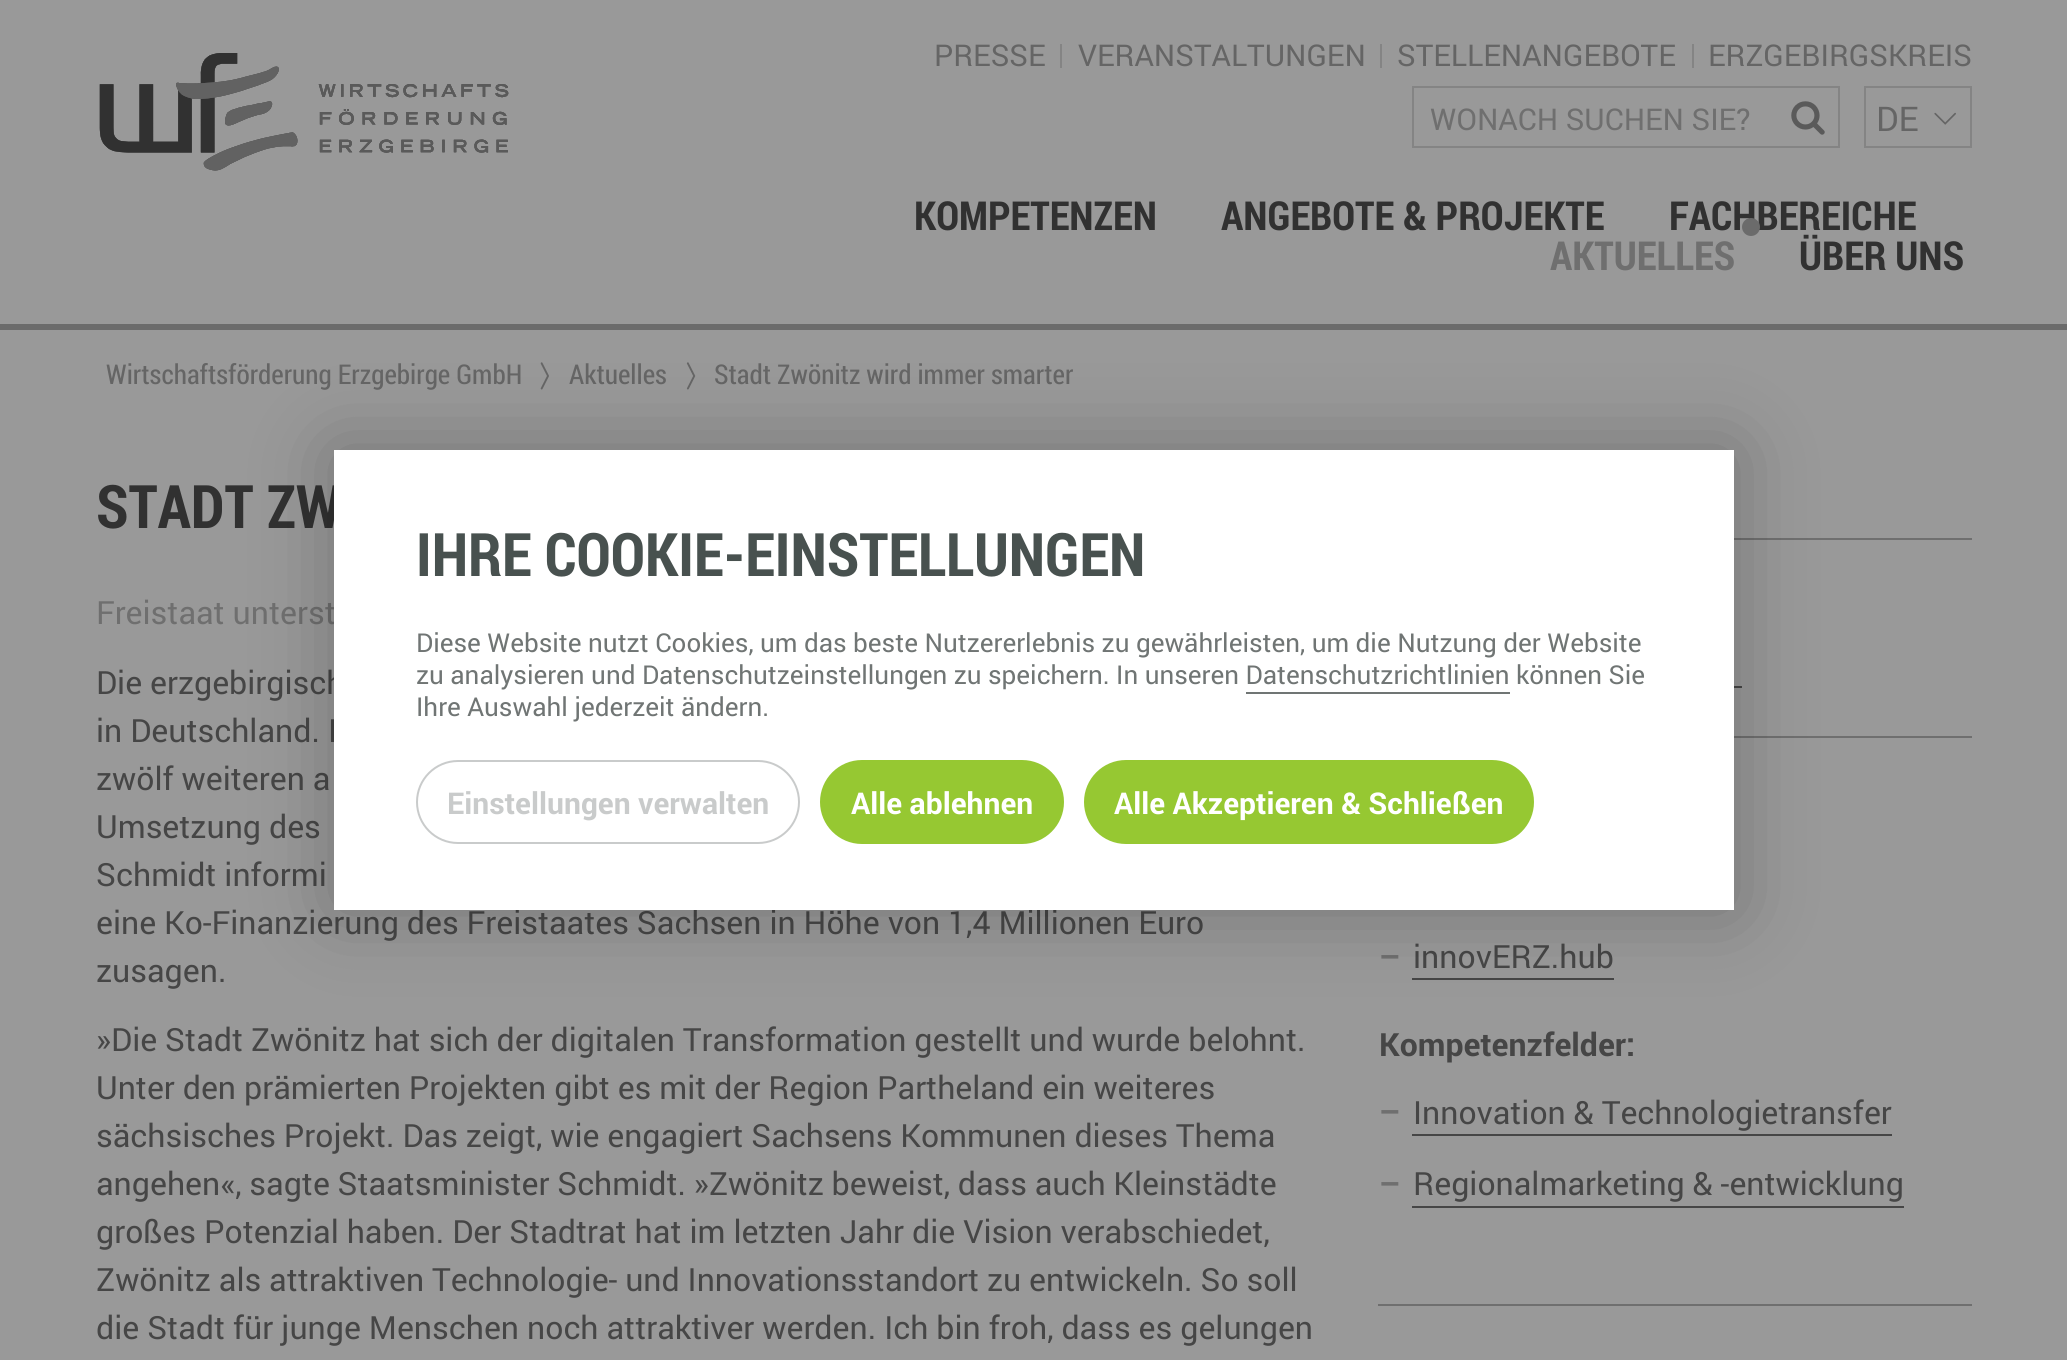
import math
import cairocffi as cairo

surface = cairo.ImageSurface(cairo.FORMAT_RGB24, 2067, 1360)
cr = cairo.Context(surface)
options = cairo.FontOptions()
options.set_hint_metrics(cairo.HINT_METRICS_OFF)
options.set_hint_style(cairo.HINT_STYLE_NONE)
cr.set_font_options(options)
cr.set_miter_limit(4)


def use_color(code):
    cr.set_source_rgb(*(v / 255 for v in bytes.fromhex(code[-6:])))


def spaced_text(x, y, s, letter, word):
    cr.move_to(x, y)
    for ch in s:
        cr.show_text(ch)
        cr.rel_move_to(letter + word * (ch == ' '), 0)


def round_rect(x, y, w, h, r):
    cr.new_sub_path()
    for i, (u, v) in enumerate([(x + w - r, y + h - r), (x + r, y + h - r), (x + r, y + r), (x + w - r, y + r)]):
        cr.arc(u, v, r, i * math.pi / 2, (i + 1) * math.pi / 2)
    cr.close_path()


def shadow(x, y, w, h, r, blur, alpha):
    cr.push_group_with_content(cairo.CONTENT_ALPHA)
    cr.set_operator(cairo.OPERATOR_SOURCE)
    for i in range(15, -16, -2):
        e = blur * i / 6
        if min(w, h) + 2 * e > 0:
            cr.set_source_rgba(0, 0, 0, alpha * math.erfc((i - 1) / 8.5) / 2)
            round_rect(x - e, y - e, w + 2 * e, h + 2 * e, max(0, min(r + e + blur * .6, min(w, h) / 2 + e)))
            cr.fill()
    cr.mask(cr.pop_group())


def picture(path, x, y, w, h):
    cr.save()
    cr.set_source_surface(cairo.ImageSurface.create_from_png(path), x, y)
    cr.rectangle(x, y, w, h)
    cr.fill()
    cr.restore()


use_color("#999999")
cr.paint()
picture("img1.png", 99, 53, 410, 118)
cr.select_font_face("Roboto")
cr.set_font_size(30)
use_color("#656565")
cr.move_to(934, 66)
cr.show_text("PRESSE")
use_color("#848484")
cr.rectangle(1060, 44, 2, 24)
cr.fill()
use_color("#656565")
cr.move_to(1078, 66)
cr.show_text("VERANSTALTUNGEN")
use_color("#848484")
cr.rectangle(1380, 44, 2, 24)
cr.fill()
use_color("#656565")
cr.move_to(1397, 66)
cr.show_text("STELLENANGEBOTE")
use_color("#848484")
cr.rectangle(1692, 44, 2, 24)
cr.fill()
use_color("#656565")
cr.move_to(1708, 66)
cr.show_text("ERZGEBIRGSKREIS")
cr.rectangle(1413, 87, 426, 60)
use_color("#848484")
cr.stroke()
use_color("#6f6f6f")
cr.move_to(1430, 130)
cr.show_text("WONACH SUCHEN SIE?")
picture("img2.png", 1791, 101, 34, 34)
cr.rectangle(1865, 87, 106, 60)
use_color("#848484")
cr.stroke()
cr.set_font_size(34)
use_color("#656565")
cr.move_to(1876, 131)
cr.show_text("DE")
picture("img3.png", 1934, 112, 22, 13)
cr.select_font_face("Roboto Condensed", cairo.FONT_SLANT_NORMAL, cairo.FONT_WEIGHT_BOLD)
cr.set_font_size(40)
use_color("#313131")
cr.move_to(914, 230)
cr.show_text("KOMPETENZEN")
cr.move_to(1221, 230)
cr.show_text("ANGEBOTE & PROJEKTE")
cr.move_to(1669, 230)
cr.show_text("FACHBEREICHE")
use_color("#6b6b6b")
cr.new_path()
cr.arc(1751, 227, 9, 0, 2 * math.pi)
cr.fill()
use_color("#6f6f6f")
cr.move_to(1550, 270)
cr.show_text("AKTUELLES")
use_color("#313131")
cr.move_to(1799, 270)
cr.show_text("ÜBER UNS")
use_color("#6b6b6b")
cr.rectangle(0, 324, 2067, 6)
cr.fill()
cr.select_font_face("Roboto Condensed")
cr.set_font_size(27.25)
use_color("#656565")
cr.move_to(106, 384)
cr.show_text("Wirtschaftsförderung Erzgebirge GmbH")
picture("img4.png", 540, 362, 9, 28)
cr.move_to(569, 384)
cr.show_text("Aktuelles")
picture("img5.png", 686, 362, 10, 28)
cr.move_to(714, 384)
cr.show_text("Stadt Zwönitz wird immer smarter")
cr.select_font_face("Roboto Condensed", cairo.FONT_SLANT_NORMAL, cairo.FONT_WEIGHT_BOLD)
cr.set_font_size(60)
use_color("#313131")
cr.move_to(96, 528)
cr.show_text("STADT ZW")
cr.select_font_face("Roboto")
cr.set_font_size(32)
use_color("#6f6f6f")
cr.move_to(96, 624)
cr.show_text("Freistaat unterst")
use_color("#464646")
cr.move_to(96, 694)
cr.show_text("Die erzgebirgisch")
cr.move_to(96, 742)
cr.show_text("in Deutschland. I")
cr.move_to(96, 790)
cr.show_text("zwölf weiteren a")
cr.move_to(96, 838)
cr.show_text("Umsetzung des")
cr.move_to(96, 886)
cr.show_text("Schmidt informi")
cr.move_to(96, 934)
cr.show_text("eine Ko-Finanzierung des Freistaates Sachsen in Höhe von 1,4 Millionen Euro")
cr.move_to(96, 982)
cr.show_text("zusagen.")
cr.move_to(96, 1051)
cr.show_text("»Die Stadt Zwönitz hat sich der digitalen Transformation gestellt und wurde belohnt.")
cr.move_to(96, 1099)
cr.show_text("Unter den prämierten Projekten gibt es mit der Region Partheland ein weiteres")
spaced_text(96, 1147, "sächsisches Projekt. Das zeigt, wie engagiert Sachsens Kommunen dieses Thema", 0, -0.1)
spaced_text(96, 1195, "angehen«, sagte Staatsminister Schmidt. »Zwönitz beweist, dass auch Kleinstädte", 0, -0.25)
cr.move_to(96, 1243)
cr.show_text("großes Potenzial haben. Der Stadtrat hat im letzten Jahr die Vision verabschiedet,")
spaced_text(96, 1291, "Zwönitz als attraktiven Technologie- und Innovationsstandort zu entwickeln. So soll", 0, -0.1)
cr.move_to(96, 1339)
cr.show_text("die Stadt für junge Menschen noch attraktiver werden. Ich bin froh, dass es gelungen")
use_color("#6f6f6f")
cr.rectangle(1734, 538, 238, 2)
cr.fill()
use_color("#464646")
cr.rectangle(1734, 686, 8, 2)
cr.fill()
use_color("#6f6f6f")
cr.rectangle(1734, 736, 238, 2)
cr.fill()
cr.select_font_face("Roboto", cairo.FONT_SLANT_NORMAL, cairo.FONT_WEIGHT_BOLD)
cr.move_to(1379, 968)
cr.show_text("–")
cr.select_font_face("Roboto")
use_color("#464646")
cr.move_to(1413, 968)
cr.show_text("innovERZ.hub")
cr.rectangle(1412, 978, 202, 2)
cr.fill()
cr.select_font_face("Roboto", cairo.FONT_SLANT_NORMAL, cairo.FONT_WEIGHT_BOLD)
cr.move_to(1379, 1056)
cr.show_text("Kompetenzfelder:")
use_color("#6f6f6f")
cr.move_to(1379, 1123)
cr.show_text("–")
cr.select_font_face("Roboto")
use_color("#464646")
cr.move_to(1413, 1124)
cr.show_text("Innovation & Technologietransfer")
cr.rectangle(1412, 1134, 480, 2)
cr.fill()
cr.select_font_face("Roboto", cairo.FONT_SLANT_NORMAL, cairo.FONT_WEIGHT_BOLD)
use_color("#6f6f6f")
cr.move_to(1379, 1195)
cr.show_text("–")
cr.select_font_face("Roboto")
use_color("#464646")
cr.move_to(1413, 1195)
cr.show_text("Regionalmarketing & -entwicklung")
cr.rectangle(1412, 1206, 492, 2)
cr.fill()
use_color("#6f6f6f")
cr.rectangle(1378, 1304, 594, 2)
cr.fill()
use_color("#000000")
shadow(334, 450, 1400, 460, 0, 40, 0.25)
use_color("#ffffff")
cr.rectangle(334, 450, 1400, 460)
cr.fill()
cr.select_font_face("Roboto Condensed", cairo.FONT_SLANT_NORMAL, cairo.FONT_WEIGHT_BOLD)
cr.set_font_size(60)
use_color("#48514f")
cr.move_to(416, 576)
cr.show_text("IHRE COOKIE-EINSTELLUNGEN")
cr.select_font_face("Roboto")
cr.set_font_size(26)
use_color("#707574")
cr.move_to(416, 652)
cr.show_text("Diese Website nutzt Cookies, um das beste Nutzererlebnis zu gewährleisten, um die Nutzung der Website")
cr.move_to(416, 684)
cr.show_text("zu analysieren und Datenschutzeinstellungen zu speichern. In unseren Datenschutzrichtlinien können Sie")
cr.rectangle(1246, 692, 264, 2)
cr.fill()
cr.move_to(416, 716)
cr.show_text("Ihre Auswahl jederzeit ändern.")
round_rect(417, 761, 382, 82, 41)
use_color("#c9cbcb")
cr.stroke()
cr.select_font_face("Roboto", cairo.FONT_SLANT_NORMAL, cairo.FONT_WEIGHT_BOLD)
cr.set_font_size(30)
cr.move_to(447, 814)
cr.show_text("Einstellungen verwalten")
use_color("#96c832")
round_rect(821, 761, 242, 82, 41)
cr.fill_preserve()
cr.stroke()
use_color("#ffffff")
cr.move_to(851, 814)
cr.show_text("Alle ablehnen")
use_color("#96c832")
round_rect(1085, 761, 448, 82, 41)
cr.fill_preserve()
cr.stroke()
use_color("#ffffff")
cr.move_to(1114, 814)
cr.show_text("Alle Akzeptieren & Schließen")
surface.write_to_png("result.png")
